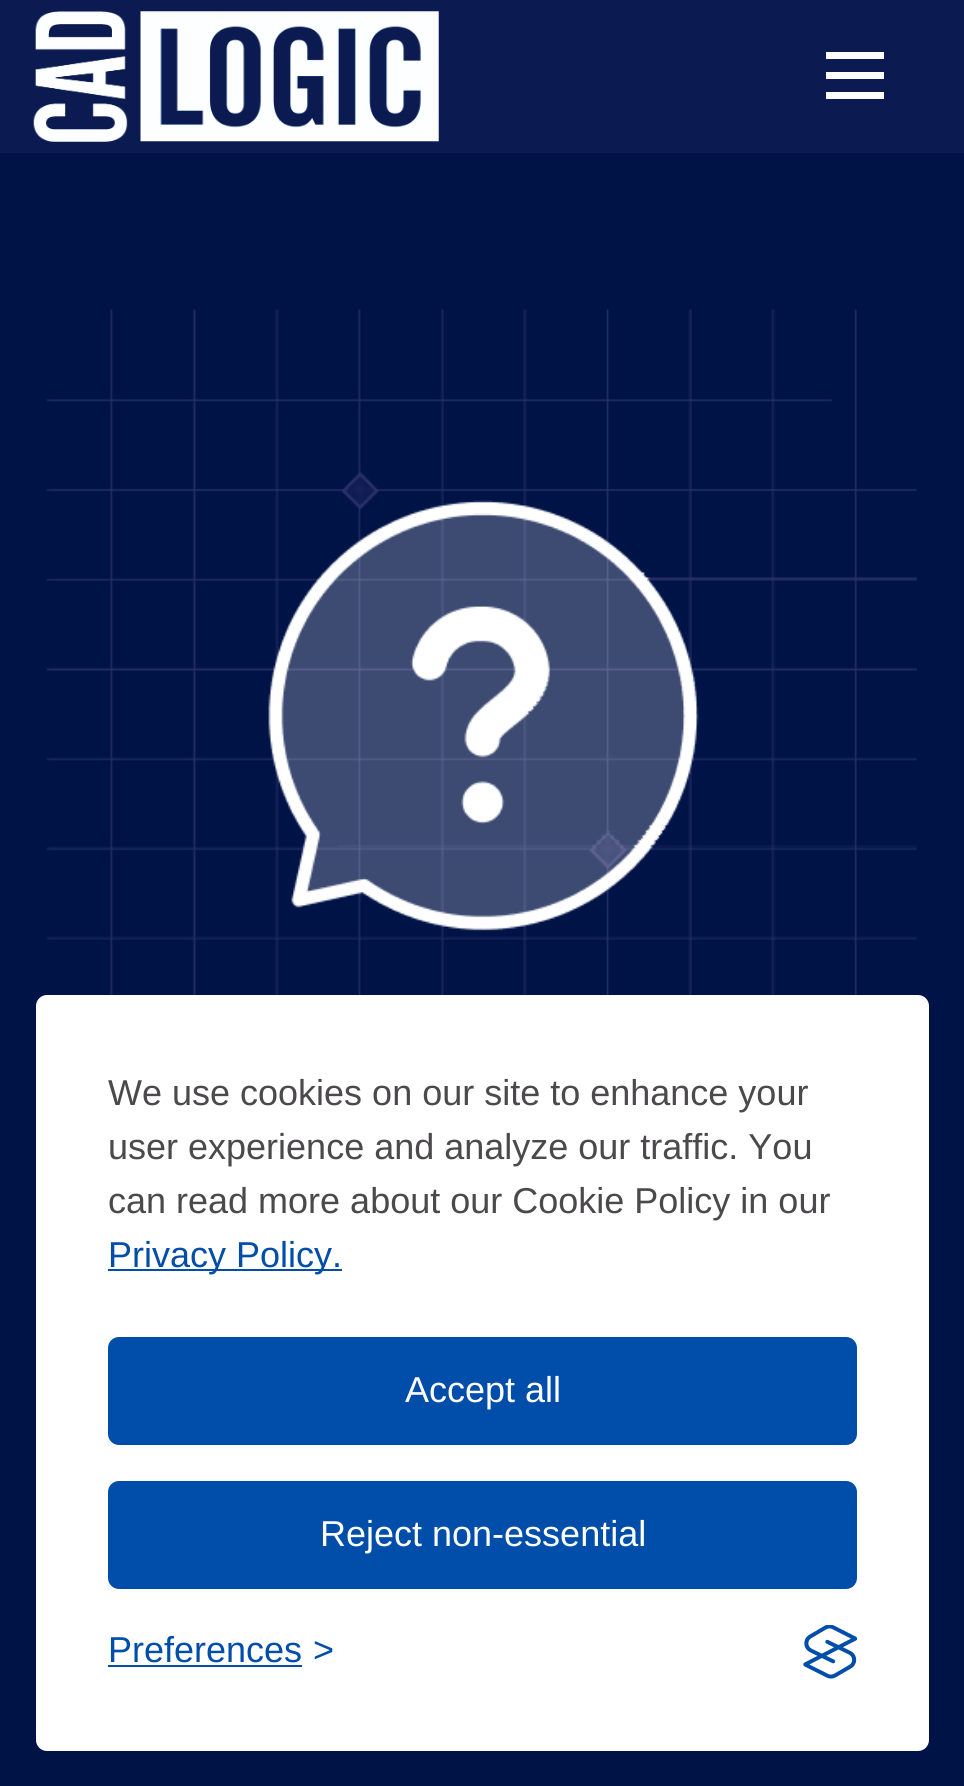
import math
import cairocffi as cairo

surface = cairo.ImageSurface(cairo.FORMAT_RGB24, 964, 1786)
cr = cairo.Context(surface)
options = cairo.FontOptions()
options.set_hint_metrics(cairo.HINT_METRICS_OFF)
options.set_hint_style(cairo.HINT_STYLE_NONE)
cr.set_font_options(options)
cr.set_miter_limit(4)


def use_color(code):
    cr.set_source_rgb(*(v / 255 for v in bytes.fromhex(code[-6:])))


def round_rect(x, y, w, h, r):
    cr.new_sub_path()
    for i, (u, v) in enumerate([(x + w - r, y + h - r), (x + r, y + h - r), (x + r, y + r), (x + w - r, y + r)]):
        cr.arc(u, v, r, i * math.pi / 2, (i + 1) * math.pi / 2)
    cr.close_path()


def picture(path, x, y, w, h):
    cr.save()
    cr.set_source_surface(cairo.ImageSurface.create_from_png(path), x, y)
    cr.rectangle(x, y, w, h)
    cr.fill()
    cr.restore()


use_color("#001347")
cr.paint()
use_color("#0b1a50")
cr.rectangle(0, 0, 964, 153)
cr.fill()
picture("img1.png", 33, 11, 406, 131)
use_color("#ffffff")
cr.rectangle(826, 52, 58, 7)
cr.fill()
cr.rectangle(826, 72, 58, 7)
cr.fill()
cr.rectangle(826, 92, 58, 7)
cr.fill()
picture("img2.png", 46, 309, 871, 686)
round_rect(36, 995, 893, 756, 11)
cr.fill()
cr.select_font_face("Liberation Sans")
cr.set_font_size(36)
use_color("#4b494b")
cr.move_to(108, 1105)
cr.show_text("We use cookies on our site to enhance your")
cr.move_to(108, 1159)
cr.show_text("user experience and analyze our traffic. You")
cr.move_to(108, 1213)
cr.show_text("can read more about our Cookie Policy in our")
use_color("#004daa")
cr.rectangle(108, 1269, 234, 2)
cr.fill()
cr.move_to(108, 1267)
cr.show_text("Privacy Policy.")
round_rect(110.5, 1339.5, 744, 103, 8.5)
cr.fill_preserve()
cr.set_line_width(5)
cr.stroke()
use_color("#ffffff")
cr.move_to(405, 1402)
cr.show_text("Accept all")
use_color("#004daa")
round_rect(110.5, 1483.5, 744, 103, 8.5)
cr.fill_preserve()
cr.stroke()
use_color("#ffffff")
cr.move_to(320, 1546)
cr.show_text("Reject non-essential")
use_color("#004daa")
cr.move_to(108, 1662)
cr.show_text("Preferences")
cr.rectangle(108, 1665, 194, 2)
cr.fill()
cr.move_to(313, 1662)
cr.show_text(">")
picture("img3.png", 803, 1625, 54, 54)
surface.write_to_png("result.png")
